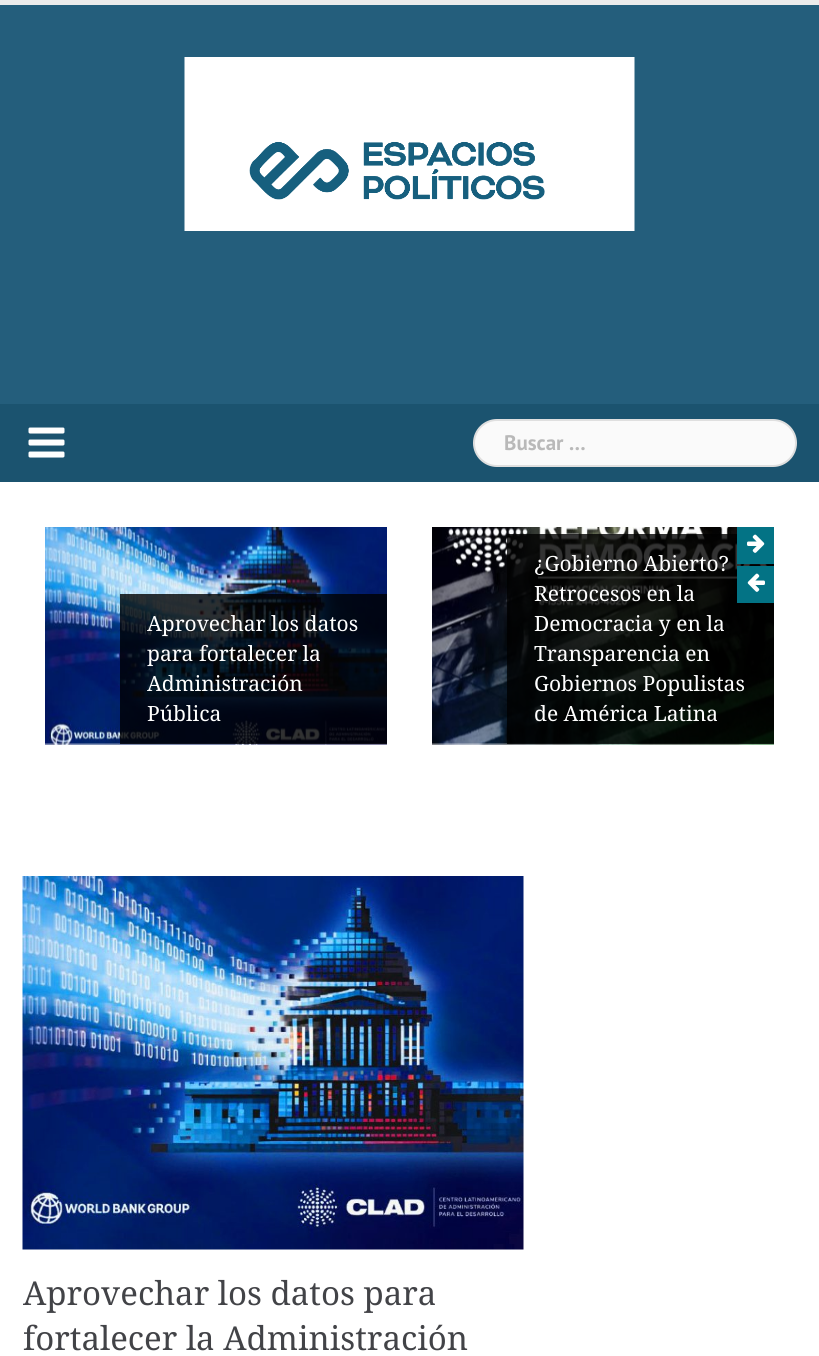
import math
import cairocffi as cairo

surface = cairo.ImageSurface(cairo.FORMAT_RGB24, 819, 1356)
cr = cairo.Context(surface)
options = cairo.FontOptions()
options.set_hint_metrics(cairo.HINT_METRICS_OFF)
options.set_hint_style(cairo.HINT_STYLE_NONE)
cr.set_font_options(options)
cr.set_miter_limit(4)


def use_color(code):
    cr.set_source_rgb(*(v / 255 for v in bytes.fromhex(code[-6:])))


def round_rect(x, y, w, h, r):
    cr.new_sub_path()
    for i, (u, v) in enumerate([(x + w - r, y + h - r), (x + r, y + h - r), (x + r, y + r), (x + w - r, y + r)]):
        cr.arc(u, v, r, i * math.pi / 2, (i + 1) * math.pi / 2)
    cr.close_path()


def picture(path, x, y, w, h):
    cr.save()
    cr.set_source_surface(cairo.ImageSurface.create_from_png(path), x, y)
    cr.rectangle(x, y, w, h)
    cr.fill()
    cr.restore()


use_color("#ebebeb")
cr.paint()
use_color("#245e7c")
cr.rectangle(0, 5, 819, 399)
cr.fill()
picture("img1.png", 184, 57, 451, 174)
use_color("#1b536f")
cr.rectangle(0, 404, 819, 78)
cr.fill()
picture("img2.png", 28, 427, 37, 31)
use_color("#fafafa")
round_rect(474, 420, 322, 46, 23)
cr.fill_preserve()
use_color("#dfdfdf")
cr.stroke()
cr.select_font_face("PT Sans", cairo.FONT_SLANT_NORMAL, cairo.FONT_WEIGHT_BOLD)
cr.set_font_size(21)
use_color("#b9b9b9")
cr.move_to(504, 450)
cr.show_text("Buscar …")
use_color("#ffffff")
cr.rectangle(0, 482, 819, 874)
cr.fill()
picture("img3.png", 45, 527, 342, 218)
cr.set_source_rgba(0, 0, 0, 0.8)
cr.rectangle(120, 594, 267, 150)
cr.fill()
cr.select_font_face("Droid Serif")
use_color("#ffffff")
cr.move_to(147, 631)
cr.show_text("Aprovechar los datos")
cr.move_to(147, 661)
cr.show_text("para fortalecer la")
cr.move_to(147, 691)
cr.show_text("Administración")
cr.move_to(147, 721)
cr.show_text("Pública")
picture("img4.png", 432, 527, 342, 218)
cr.set_source_rgba(0, 0, 0, 0.8)
cr.rectangle(507, 534, 267, 210)
cr.fill()
use_color("#ffffff")
cr.move_to(534, 571)
cr.show_text("¿Gobierno Abierto?")
cr.move_to(534, 601)
cr.show_text("Retrocesos en la")
cr.move_to(534, 631)
cr.show_text("Democracia y en la")
cr.move_to(534, 661)
cr.show_text("Transparencia en")
cr.move_to(534, 691)
cr.show_text("Gobiernos Populistas")
cr.move_to(534, 721)
cr.show_text("de América Latina")
use_color("#037385")
cr.rectangle(737, 527, 37, 37)
cr.fill()
picture("img5.png", 747, 534, 18, 19)
cr.rectangle(737, 566, 37, 37)
cr.fill()
picture("img6.png", 747, 573, 18, 19)
picture("img7.png", 22, 876, 502, 374)
cr.set_font_size(33)
use_color("#424347")
cr.move_to(23, 1305)
cr.show_text("Aprovechar los datos para")
cr.move_to(23, 1350)
cr.show_text("fortalecer la Administración")
surface.write_to_png("result.png")
